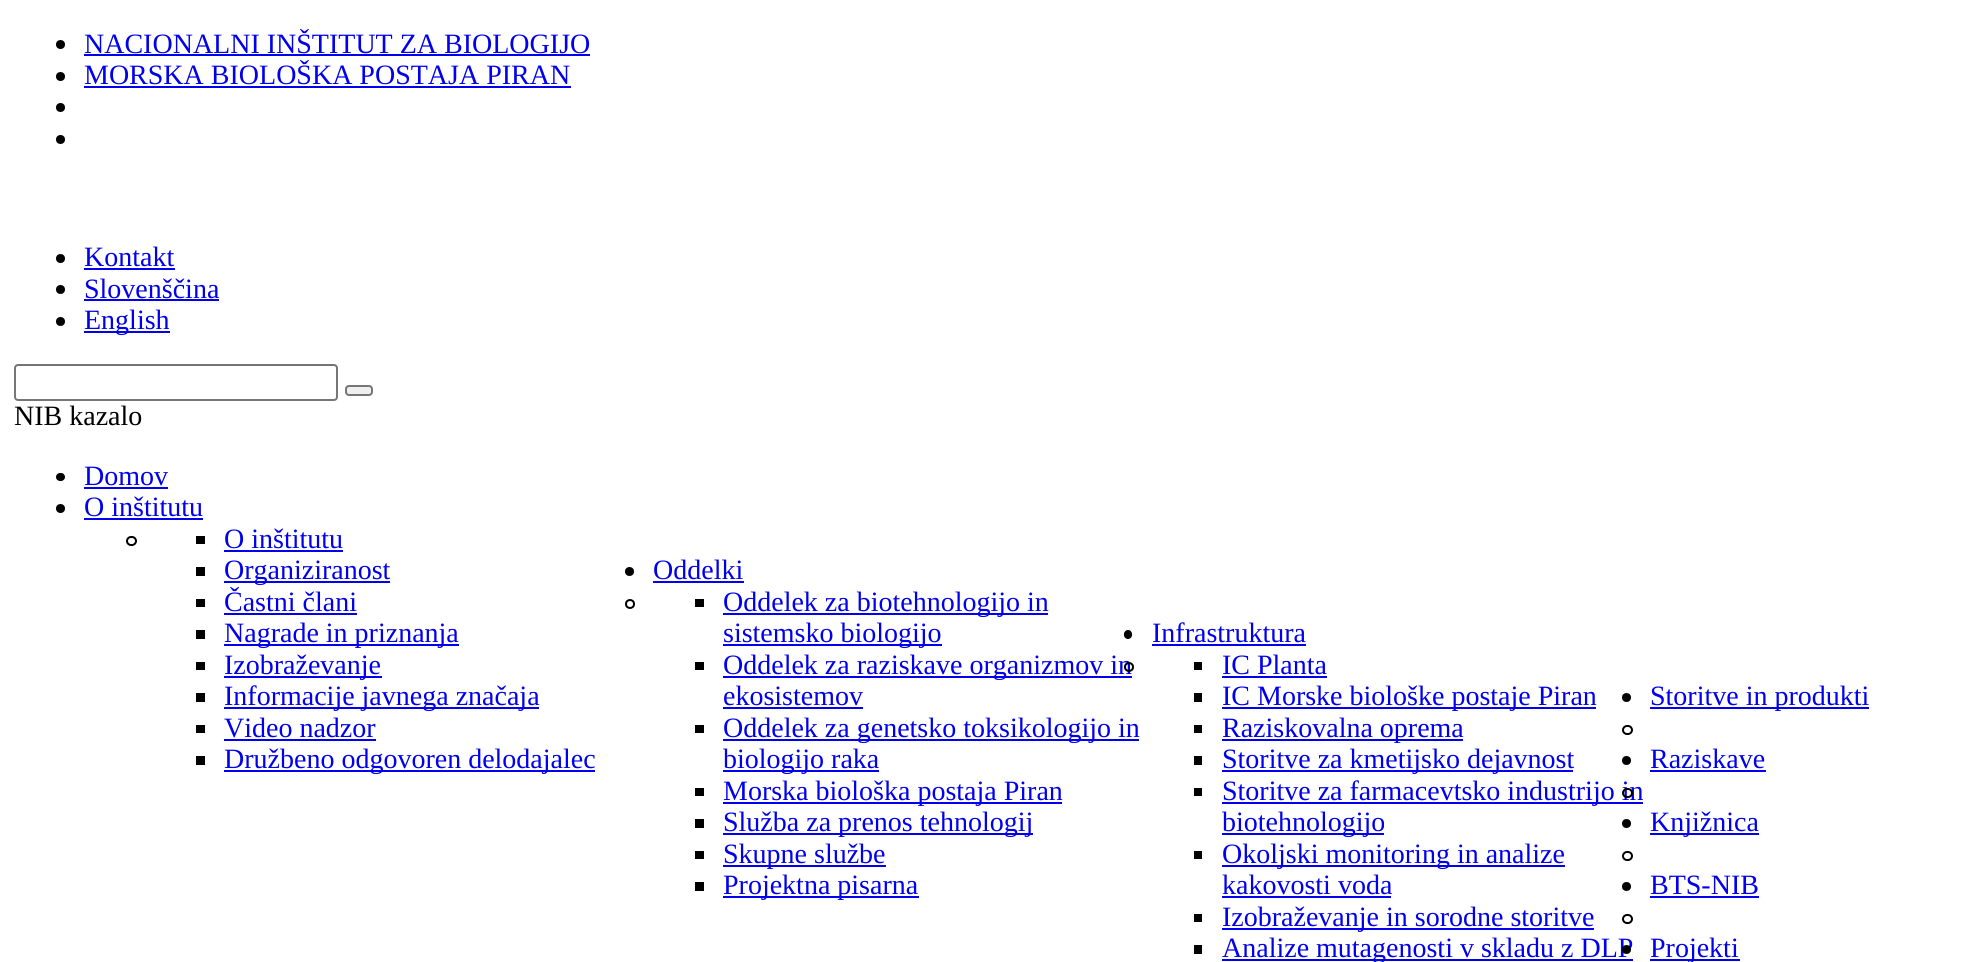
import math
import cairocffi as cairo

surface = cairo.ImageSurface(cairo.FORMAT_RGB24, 1981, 962)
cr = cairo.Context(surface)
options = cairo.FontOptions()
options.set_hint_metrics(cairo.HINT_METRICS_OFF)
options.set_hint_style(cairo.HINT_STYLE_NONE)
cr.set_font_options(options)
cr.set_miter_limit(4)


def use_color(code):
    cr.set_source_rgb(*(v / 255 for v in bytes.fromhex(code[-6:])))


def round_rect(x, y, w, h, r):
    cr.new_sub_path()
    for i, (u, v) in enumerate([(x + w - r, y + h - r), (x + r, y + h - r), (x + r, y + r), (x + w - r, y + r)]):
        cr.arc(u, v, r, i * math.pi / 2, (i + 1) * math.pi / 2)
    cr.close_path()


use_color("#ffffff")
cr.paint()
use_color("#000000")
cr.arc(60.5, 44.5, 4.5, 0, 2 * math.pi)
cr.fill()
cr.select_font_face("Liberation Serif")
cr.set_font_size(28)
use_color("#0000ee")
cr.move_to(84, 53)
cr.show_text("NACIONALNI INŠTITUT ZA BIOLOGIJO")
cr.rectangle(84, 54, 506, 2)
cr.fill()
use_color("#000000")
cr.arc(60.5, 76.5, 4.5, 0, 2 * math.pi)
cr.fill()
use_color("#0000ee")
cr.move_to(84, 84)
cr.show_text("MORSKA BIOLOŠKA POSTAJA PIRAN")
cr.rectangle(84, 86, 487, 2)
cr.fill()
use_color("#000000")
cr.arc(60.5, 107.5, 4.5, 0, 2 * math.pi)
cr.fill()
cr.arc(60.5, 139.5, 4.5, 0, 2 * math.pi)
cr.fill()
cr.arc(60.5, 258.5, 4.5, 0, 2 * math.pi)
cr.fill()
use_color("#0000ee")
cr.move_to(84, 266)
cr.show_text("Kontakt")
cr.rectangle(84, 268, 91, 2)
cr.fill()
use_color("#000000")
cr.arc(60.5, 289.5, 4.5, 0, 2 * math.pi)
cr.fill()
use_color("#0000ee")
cr.move_to(84, 298)
cr.show_text("Slovenščina")
cr.rectangle(84, 299, 135, 2)
cr.fill()
use_color("#000000")
cr.arc(60.5, 321.5, 4.5, 0, 2 * math.pi)
cr.fill()
use_color("#0000ee")
cr.rectangle(84, 331, 86, 2)
cr.fill()
cr.move_to(84, 329)
cr.show_text("English")
round_rect(15, 365, 322, 35, 3)
use_color("#767676")
cr.stroke()
use_color("#efefef")
round_rect(346, 386, 26, 9, 3)
cr.fill_preserve()
use_color("#767676")
cr.stroke()
use_color("#000000")
cr.move_to(14, 425)
cr.show_text("NIB kazalo")
round_rect(56, 473, 9, 8, 4)
cr.fill()
use_color("#0000ee")
cr.move_to(84, 485)
cr.show_text("Domov")
cr.rectangle(84, 487, 84, 2)
cr.fill()
use_color("#000000")
cr.arc(60.5, 508.5, 4.5, 0, 2 * math.pi)
cr.fill()
use_color("#0000ee")
cr.move_to(84, 516)
cr.show_text("O inštitutu")
cr.rectangle(84, 518, 119, 2)
cr.fill()
round_rect(127, 537, 9, 8, 4)
use_color("#000000")
cr.stroke()
cr.rectangle(196, 536, 9, 8)
cr.fill()
use_color("#0000ee")
cr.move_to(224, 548)
cr.show_text("O inštitutu")
cr.rectangle(224, 550, 119, 2)
cr.fill()
use_color("#000000")
cr.rectangle(196, 567, 9, 9)
cr.fill()
use_color("#0000ee")
cr.rectangle(224, 581, 166, 2)
cr.fill()
cr.move_to(224, 579)
cr.show_text("Organiziranost")
use_color("#000000")
cr.rectangle(196, 599, 9, 8)
cr.fill()
use_color("#0000ee")
cr.move_to(224, 611)
cr.show_text("Častni člani")
cr.rectangle(224, 613, 133, 2)
cr.fill()
use_color("#000000")
cr.rectangle(196, 630, 9, 9)
cr.fill()
use_color("#0000ee")
cr.rectangle(224, 644, 235, 2)
cr.fill()
cr.move_to(224, 642)
cr.show_text("Nagrade in priznanja")
use_color("#000000")
cr.rectangle(196, 662, 9, 8)
cr.fill()
use_color("#0000ee")
cr.rectangle(224, 676, 158, 2)
cr.fill()
cr.move_to(224, 674)
cr.show_text("Izobraževanje")
use_color("#000000")
cr.rectangle(196, 693, 9, 9)
cr.fill()
use_color("#0000ee")
cr.rectangle(224, 707, 315, 2)
cr.fill()
cr.move_to(224, 705)
cr.show_text("Informacije javnega značaja")
use_color("#000000")
cr.rectangle(196, 725, 9, 8)
cr.fill()
use_color("#0000ee")
cr.move_to(224, 737)
cr.show_text("Video nadzor")
cr.rectangle(224, 739, 152, 2)
cr.fill()
use_color("#000000")
cr.rectangle(196, 756, 9, 9)
cr.fill()
use_color("#0000ee")
cr.rectangle(224, 770, 371, 2)
cr.fill()
cr.move_to(224, 768)
cr.show_text("Družbeno odgovoren delodajalec")
use_color("#000000")
cr.new_path()
cr.arc(629.5, 571.5, 4.5, 0, 2 * math.pi)
cr.fill()
use_color("#0000ee")
cr.move_to(653, 579)
cr.show_text("Oddelki")
cr.rectangle(653, 581, 91, 2)
cr.fill()
cr.arc(630, 604, 4, 0, 2 * math.pi)
use_color("#000000")
cr.stroke()
cr.rectangle(695, 599, 9, 8)
cr.fill()
use_color("#0000ee")
cr.rectangle(723, 613, 325, 2)
cr.fill()
cr.move_to(723, 611)
cr.show_text("Oddelek za biotehnologijo in")
cr.rectangle(723, 644, 219, 2)
cr.fill()
cr.move_to(723, 642)
cr.show_text("sistemsko biologijo")
use_color("#000000")
cr.rectangle(695, 662, 9, 8)
cr.fill()
use_color("#0000ee")
cr.rectangle(723, 676, 409, 2)
cr.fill()
cr.move_to(723, 674)
cr.show_text("Oddelek za raziskave organizmov in")
cr.move_to(723, 705)
cr.show_text("ekosistemov")
cr.rectangle(723, 707, 140, 2)
cr.fill()
use_color("#000000")
cr.rectangle(695, 725, 9, 8)
cr.fill()
use_color("#0000ee")
cr.rectangle(723, 739, 416, 2)
cr.fill()
cr.move_to(723, 737)
cr.show_text("Oddelek za genetsko toksikologijo in")
cr.rectangle(723, 770, 156, 2)
cr.fill()
cr.move_to(723, 768)
cr.show_text("biologijo raka")
use_color("#000000")
cr.rectangle(695, 788, 9, 8)
cr.fill()
use_color("#0000ee")
cr.rectangle(723, 802, 339, 2)
cr.fill()
cr.move_to(723, 800)
cr.show_text("Morska biološka postaja Piran")
use_color("#000000")
cr.rectangle(695, 819, 9, 9)
cr.fill()
use_color("#0000ee")
cr.rectangle(723, 833, 310, 2)
cr.fill()
cr.move_to(723, 831)
cr.show_text("Služba za prenos tehnologij")
use_color("#000000")
cr.rectangle(695, 851, 9, 8)
cr.fill()
use_color("#0000ee")
cr.rectangle(723, 865, 163, 2)
cr.fill()
cr.move_to(723, 863)
cr.show_text("Skupne službe")
use_color("#000000")
cr.rectangle(695, 882, 9, 9)
cr.fill()
use_color("#0000ee")
cr.rectangle(723, 896, 196, 2)
cr.fill()
cr.move_to(723, 894)
cr.show_text("Projektna pisarna")
use_color("#000000")
round_rect(1124, 630, 8, 9, 4)
cr.fill()
use_color("#0000ee")
cr.move_to(1152, 642)
cr.show_text("Infrastruktura")
cr.rectangle(1152, 644, 154, 2)
cr.fill()
cr.arc(1129, 667, 4, 0, 2 * math.pi)
use_color("#000000")
cr.stroke()
cr.rectangle(1194, 662, 8, 8)
cr.fill()
use_color("#0000ee")
cr.move_to(1222, 674)
cr.show_text("IC Planta")
cr.rectangle(1222, 676, 105, 2)
cr.fill()
use_color("#000000")
cr.rectangle(1194, 693, 8, 9)
cr.fill()
use_color("#0000ee")
cr.rectangle(1222, 707, 374, 2)
cr.fill()
cr.move_to(1222, 705)
cr.show_text("IC Morske biološke postaje Piran")
use_color("#000000")
cr.rectangle(1194, 725, 8, 8)
cr.fill()
use_color("#0000ee")
cr.rectangle(1222, 739, 241, 2)
cr.fill()
cr.move_to(1222, 737)
cr.show_text("Raziskovalna oprema")
use_color("#000000")
cr.new_path()
cr.arc(1626.5, 697.5, 4.5, 0, 2 * math.pi)
cr.fill()
use_color("#0000ee")
cr.rectangle(1650, 707, 219, 2)
cr.fill()
cr.move_to(1650, 705)
cr.show_text("Storitve in produkti")
round_rect(1623, 726, 9, 8, 4)
use_color("#000000")
cr.stroke()
cr.rectangle(1194, 756, 8, 9)
cr.fill()
use_color("#0000ee")
cr.rectangle(1222, 770, 351, 2)
cr.fill()
cr.move_to(1222, 768)
cr.show_text("Storitve za kmetijsko dejavnost")
use_color("#000000")
cr.rectangle(1194, 788, 8, 8)
cr.fill()
use_color("#0000ee")
cr.rectangle(1222, 802, 421, 2)
cr.fill()
cr.move_to(1222, 800)
cr.show_text("Storitve za farmacevtsko industrijo in")
cr.rectangle(1222, 833, 162, 2)
cr.fill()
cr.move_to(1222, 831)
cr.show_text("biotehnologijo")
use_color("#000000")
cr.rectangle(1194, 851, 8, 8)
cr.fill()
use_color("#0000ee")
cr.rectangle(1222, 865, 343, 2)
cr.fill()
cr.move_to(1222, 863)
cr.show_text("Okoljski monitoring in analize")
cr.move_to(1222, 894)
cr.show_text("kakovosti voda")
cr.rectangle(1222, 896, 169, 2)
cr.fill()
use_color("#000000")
cr.rectangle(1194, 914, 8, 8)
cr.fill()
use_color("#0000ee")
cr.rectangle(1222, 928, 372, 2)
cr.fill()
cr.move_to(1222, 926)
cr.show_text("Izobraževanje in sorodne storitve")
use_color("#000000")
cr.rectangle(1194, 945, 8, 9)
cr.fill()
use_color("#0000ee")
cr.rectangle(1222, 959, 411, 2)
cr.fill()
cr.move_to(1222, 957)
cr.show_text("Analize mutagenosti v skladu z DLP")
use_color("#000000")
cr.new_path()
cr.arc(1626.5, 760.5, 4.5, 0, 2 * math.pi)
cr.fill()
use_color("#0000ee")
cr.move_to(1650, 768)
cr.show_text("Raziskave")
cr.rectangle(1650, 770, 116, 2)
cr.fill()
round_rect(1623, 789, 9, 8, 4)
use_color("#000000")
cr.stroke()
cr.arc(1626.5, 823.5, 4.5, 0, 2 * math.pi)
cr.fill()
use_color("#0000ee")
cr.rectangle(1650, 833, 109, 2)
cr.fill()
cr.move_to(1650, 831)
cr.show_text("Knjižnica")
round_rect(1623, 852, 9, 8, 4)
use_color("#000000")
cr.stroke()
cr.arc(1626.5, 886.5, 4.5, 0, 2 * math.pi)
cr.fill()
use_color("#0000ee")
cr.move_to(1650, 894)
cr.show_text("BTS-NIB")
cr.rectangle(1650, 896, 109, 2)
cr.fill()
round_rect(1623, 915, 9, 8, 4)
use_color("#000000")
cr.stroke()
cr.arc(1626.5, 949.5, 4.5, 0, 2 * math.pi)
cr.fill()
use_color("#0000ee")
cr.rectangle(1650, 959, 90, 2)
cr.fill()
cr.move_to(1650, 957)
cr.show_text("Projekti")
surface.write_to_png("result.png")
